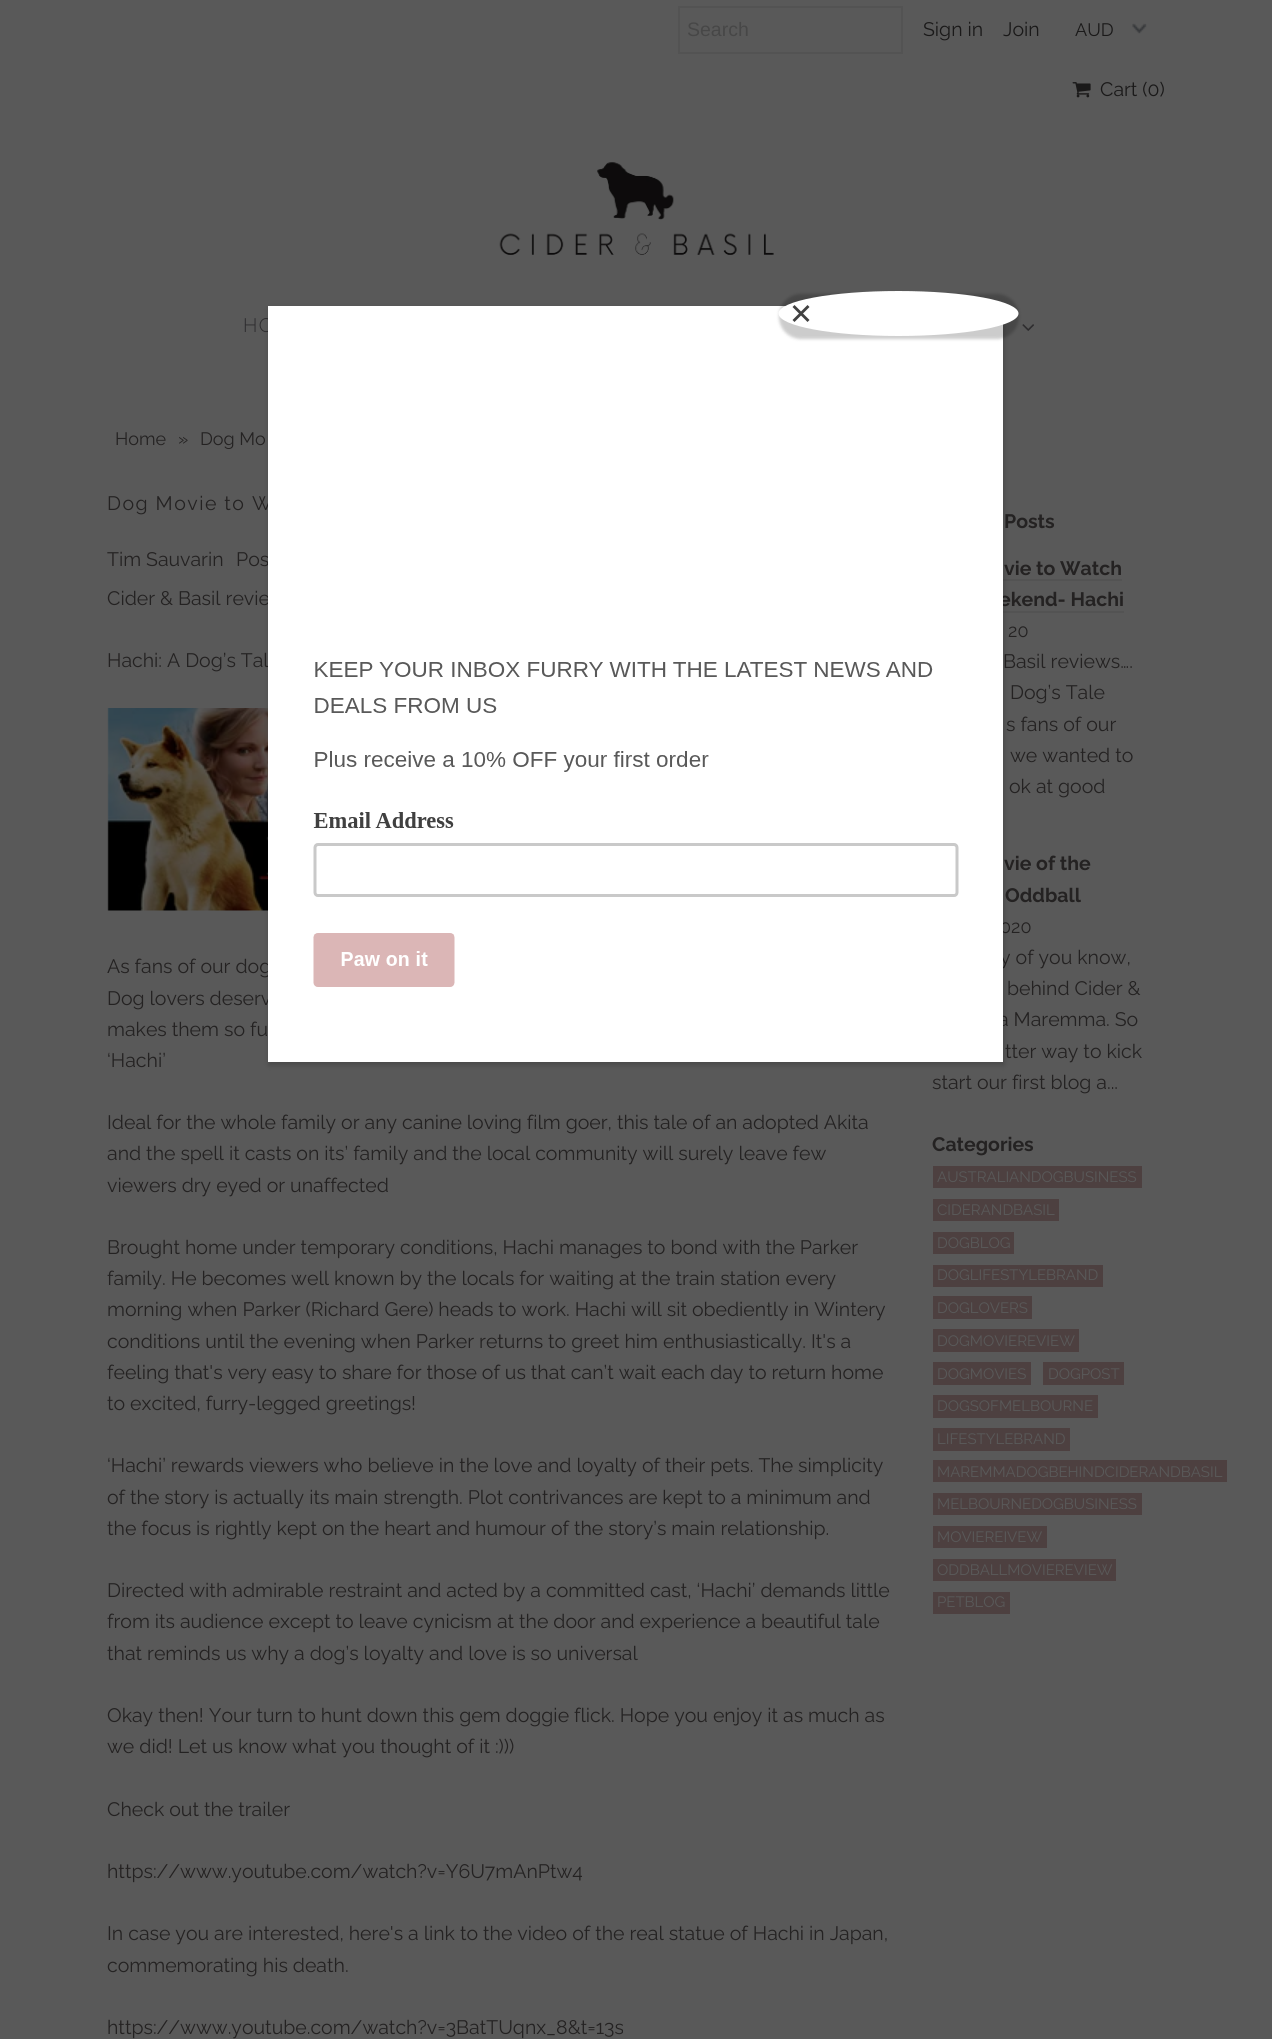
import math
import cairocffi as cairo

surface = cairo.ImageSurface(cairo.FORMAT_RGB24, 1272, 2039)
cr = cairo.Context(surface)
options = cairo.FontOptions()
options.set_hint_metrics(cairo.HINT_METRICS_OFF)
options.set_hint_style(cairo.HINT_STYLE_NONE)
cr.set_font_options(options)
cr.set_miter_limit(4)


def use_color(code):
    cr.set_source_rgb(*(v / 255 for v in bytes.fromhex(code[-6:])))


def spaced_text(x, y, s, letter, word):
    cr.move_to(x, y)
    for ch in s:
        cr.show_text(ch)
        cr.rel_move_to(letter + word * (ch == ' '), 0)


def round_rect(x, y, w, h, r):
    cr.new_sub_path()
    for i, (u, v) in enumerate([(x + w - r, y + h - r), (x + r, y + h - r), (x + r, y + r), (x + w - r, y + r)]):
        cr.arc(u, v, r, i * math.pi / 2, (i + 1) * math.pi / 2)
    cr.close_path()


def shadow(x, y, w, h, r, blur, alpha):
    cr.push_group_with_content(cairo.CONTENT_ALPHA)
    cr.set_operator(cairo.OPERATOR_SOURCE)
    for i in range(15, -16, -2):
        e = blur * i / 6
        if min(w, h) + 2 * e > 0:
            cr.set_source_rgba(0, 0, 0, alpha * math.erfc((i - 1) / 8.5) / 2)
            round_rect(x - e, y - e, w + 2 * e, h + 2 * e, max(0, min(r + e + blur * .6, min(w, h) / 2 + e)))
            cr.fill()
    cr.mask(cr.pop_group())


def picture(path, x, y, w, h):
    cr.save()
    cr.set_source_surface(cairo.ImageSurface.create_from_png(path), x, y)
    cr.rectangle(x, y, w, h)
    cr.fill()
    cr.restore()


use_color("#595959")
cr.paint()
cr.rectangle(679, 7, 223, 46)
use_color("#535353")
cr.stroke()
cr.select_font_face("Liberation Sans")
cr.set_font_size(19.5)
use_color("#474747")
cr.move_to(687, 36)
cr.show_text("Search")
cr.select_font_face("Raleway")
use_color("#1a1919")
cr.move_to(923, 36)
cr.show_text("Sign in")
cr.move_to(1003, 36)
cr.show_text("Join")
picture("img1.png", 1132, 23, 15, 11)
cr.set_font_size(18)
cr.move_to(1075, 36)
cr.show_text("AUD")
picture("img2.png", 1072, 82, 19, 16)
cr.set_font_size(19.5)
cr.move_to(1100, 96)
cr.show_text("Cart (0)")
picture("img3.png", 499, 162, 275, 93)
cr.select_font_face("Raleway Light")
use_color("#2d2c2e")
spaced_text(243, 332, "HO", 1.5, 0)
picture("img4.png", 1022, 324, 12, 7)
cr.select_font_face("Raleway")
cr.set_font_size(18)
use_color("#242222")
cr.move_to(115, 445)
cr.show_text("Home")
cr.move_to(178, 445)
cr.show_text("»")
cr.move_to(200, 445)
cr.show_text("Dog Mo")
cr.set_font_size(19.5)
spaced_text(107, 510, "Dog Movie to W", 1.5, 0)
cr.move_to(107, 566)
cr.show_text("Tim Sauvarin")
cr.move_to(236, 566)
cr.show_text("Pos")
cr.move_to(107, 605)
cr.show_text("Cider & Basil revie")
cr.move_to(107, 667)
cr.show_text("Hachi: A Dog’s Tal")
picture("img5.png", 107, 708, 161, 203)
cr.move_to(107, 973)
cr.show_text("As fans of our dog")
cr.move_to(107, 1005)
cr.show_text("Dog lovers deserv")
cr.move_to(107, 1036)
cr.show_text("makes them so fu")
cr.move_to(107, 1067)
cr.show_text("‘Hachi’")
cr.move_to(107, 1129)
cr.show_text("Ideal for the whole family or any canine loving film goer, this tale of an adopted Akita")
cr.move_to(107, 1160)
cr.show_text("and the spell it casts on its’ family and the local community will surely leave few")
cr.move_to(107, 1192)
cr.show_text("viewers dry eyed or unaffected")
cr.move_to(107, 1254)
cr.show_text("Brought home under temporary conditions, Hachi manages to bond with the Parker")
cr.move_to(107, 1285)
cr.show_text("family. He becomes well known by the locals for waiting at the train station every")
cr.move_to(107, 1316)
cr.show_text("morning when Parker (Richard Gere) heads to work. Hachi will sit obediently in Wintery")
cr.move_to(107, 1348)
cr.show_text("conditions until the evening when Parker returns to greet him enthusiastically. It's a")
cr.move_to(107, 1379)
cr.show_text("feeling that's very easy to share for those of us that can’t wait each day to return home")
cr.move_to(107, 1410)
cr.show_text("to excited, furry-legged greetings!")
cr.move_to(107, 1472)
cr.show_text("‘Hachi’ rewards viewers who believe in the love and loyalty of their pets. The simplicity")
cr.move_to(107, 1504)
cr.show_text("of the story is actually its main strength. Plot contrivances are kept to a minimum and")
cr.move_to(107, 1535)
cr.show_text("the focus is rightly kept on the heart and humour of the story’s main relationship.")
cr.move_to(107, 1597)
cr.show_text("Directed with admirable restraint and acted by a committed cast, ‘Hachi’ demands little")
cr.move_to(107, 1628)
cr.show_text("from its audience except to leave cynicism at the door and experience a beautiful tale")
cr.move_to(107, 1660)
cr.show_text("that reminds us why a dog’s loyalty and love is so universal")
cr.move_to(107, 1722)
cr.show_text("Okay then! Your turn to hunt down this gem doggie flick. Hope you enjoy it as much as")
cr.move_to(107, 1753)
cr.show_text("we did! Let us know what you thought of it :)))")
cr.move_to(107, 1816)
cr.show_text("Check out the trailer")
cr.move_to(107, 1878)
cr.show_text("https://www.youtube.com/watch?v=Y6U7mAnPtw4")
cr.move_to(107, 1940)
cr.show_text("In case you are interested, here's a link to the video of the real statue of Hachi in Japan,")
cr.move_to(107, 1972)
cr.show_text("commemorating his death.")
cr.move_to(107, 2034)
cr.show_text("https://www.youtube.com/watch?v=3BatTUqnx_8&t=13s")
cr.select_font_face("Raleway", cairo.FONT_SLANT_NORMAL, cairo.FONT_WEIGHT_BOLD)
cr.move_to(1004, 528)
cr.show_text("Posts")
cr.move_to(1004, 575)
cr.show_text("vie to Watch")
use_color("#535353")
cr.rectangle(1003, 579, 119, 2)
cr.fill()
use_color("#242222")
cr.move_to(999, 606)
cr.show_text("ekend- Hachi")
use_color("#535353")
cr.rectangle(1003, 611, 121, 2)
cr.fill()
cr.select_font_face("Raleway")
cr.set_font_size(18)
use_color("#242222")
cr.move_to(1008, 637)
cr.show_text("20")
cr.set_font_size(19.5)
cr.move_to(1003, 668)
cr.show_text("Basil reviews….")
cr.move_to(1010, 699)
cr.show_text("Dog’s Tale")
cr.move_to(1006, 731)
cr.show_text("s fans of our")
cr.move_to(1010, 762)
cr.show_text("we wanted to")
cr.move_to(1009, 793)
cr.show_text("ok at good")
cr.select_font_face("Raleway", cairo.FONT_SLANT_NORMAL, cairo.FONT_WEIGHT_BOLD)
cr.move_to(1004, 870)
cr.show_text("vie of the")
cr.move_to(1005, 902)
cr.show_text("Oddball")
cr.select_font_face("Raleway")
cr.set_font_size(18)
cr.move_to(1000, 933)
cr.show_text("020")
cr.set_font_size(19.5)
cr.move_to(1000, 964)
cr.show_text("y of you know,")
cr.move_to(1007, 995)
cr.show_text("behind Cider &")
cr.move_to(998, 1026)
cr.show_text("a Maremma. So")
cr.move_to(1005, 1058)
cr.show_text("tter way to kick")
cr.move_to(932, 1089)
cr.show_text("start our first blog a...")
cr.select_font_face("Raleway", cairo.FONT_SLANT_NORMAL, cairo.FONT_WEIGHT_BOLD)
cr.move_to(932, 1151)
cr.show_text("Categories")
use_color("#4d4040")
cr.rectangle(933, 1166, 209, 22)
cr.fill()
cr.select_font_face("Raleway")
cr.set_font_size(15)
use_color("#595959")
cr.move_to(937, 1182)
cr.show_text("AUSTRALIANDOGBUSINESS")
use_color("#4d4040")
cr.rectangle(933, 1199, 126, 22)
cr.fill()
use_color("#595959")
cr.move_to(937, 1215)
cr.show_text("CIDERANDBASIL")
use_color("#4d4040")
cr.rectangle(933, 1232, 81, 22)
cr.fill()
use_color("#595959")
cr.move_to(937, 1248)
cr.show_text("DOGBLOG")
use_color("#4d4040")
cr.rectangle(933, 1265, 170, 22)
cr.fill()
use_color("#595959")
cr.move_to(937, 1280)
cr.show_text("DOGLIFESTYLEBRAND")
use_color("#4d4040")
cr.rectangle(933, 1296, 99, 23)
cr.fill()
use_color("#595959")
cr.move_to(937, 1313)
cr.show_text("DOGLOVERS")
use_color("#4d4040")
cr.rectangle(933, 1329, 146, 23)
cr.fill()
use_color("#595959")
cr.move_to(937, 1346)
cr.show_text("DOGMOVIEREVIEW")
use_color("#4d4040")
cr.rectangle(933, 1362, 98, 23)
cr.fill()
use_color("#595959")
cr.move_to(937, 1379)
cr.show_text("DOGMOVIES")
use_color("#4d4040")
cr.rectangle(1043, 1362, 81, 23)
cr.fill()
use_color("#595959")
cr.move_to(1048, 1379)
cr.show_text("DOGPOST")
use_color("#4d4040")
cr.rectangle(933, 1395, 165, 23)
cr.fill()
use_color("#595959")
cr.move_to(937, 1411)
cr.show_text("DOGSOFMELBOURNE")
use_color("#4d4040")
cr.rectangle(933, 1428, 137, 23)
cr.fill()
use_color("#595959")
cr.move_to(937, 1444)
cr.show_text("LIFESTYLEBRAND")
use_color("#4d4040")
cr.rectangle(933, 1460, 294, 22)
cr.fill()
use_color("#595959")
cr.move_to(937, 1477)
cr.show_text("MAREMMADOGBEHINDCIDERANDBASIL")
use_color("#4d4040")
cr.rectangle(933, 1493, 209, 22)
cr.fill()
use_color("#595959")
cr.move_to(937, 1509)
cr.show_text("MELBOURNEDOGBUSINESS")
use_color("#4d4040")
cr.rectangle(933, 1526, 114, 22)
cr.fill()
use_color("#595959")
cr.move_to(937, 1542)
cr.show_text("MOVIEREIVEW")
use_color("#4d4040")
cr.rectangle(933, 1559, 183, 22)
cr.fill()
use_color("#595959")
cr.move_to(937, 1575)
cr.show_text("ODDBALLMOVIEREVIEW")
use_color("#4d4040")
cr.rectangle(933, 1592, 77, 22)
cr.fill()
use_color("#595959")
cr.move_to(937, 1607)
cr.show_text("PETBLOG")
use_color("#000000")
shadow(269, 309, 735, 756, 0, 3, 0.2)
picture("img6.png", 268, 306, 735, 756)
shadow(779, 294, 240, 45, 22.5, 1.5, 0.2)
use_color("#ffffff")
cr.new_path()
cr.move_to(898.5, 291)
cr.curve_to(965, 291, 1018.5, 301, 1018.5, 313.5)
cr.curve_to(1018.5, 326, 965, 336, 898.5, 336)
cr.curve_to(832, 336, 778.5, 326, 778.5, 313.5)
cr.curve_to(778.5, 301, 832, 291, 898.5, 291)
cr.close_path()
cr.fill()
use_color("#414141")
cr.new_path()
cr.move_to(807.5, 305)
cr.line_to(809.5, 307)
cr.line_to(794.5, 322)
cr.line_to(792.5, 320)
cr.close_path()
cr.fill()
cr.new_path()
cr.move_to(792.5, 307)
cr.line_to(794.5, 305)
cr.line_to(809.5, 320)
cr.line_to(807.5, 322)
cr.close_path()
cr.fill()
surface.write_to_png("result.png")
